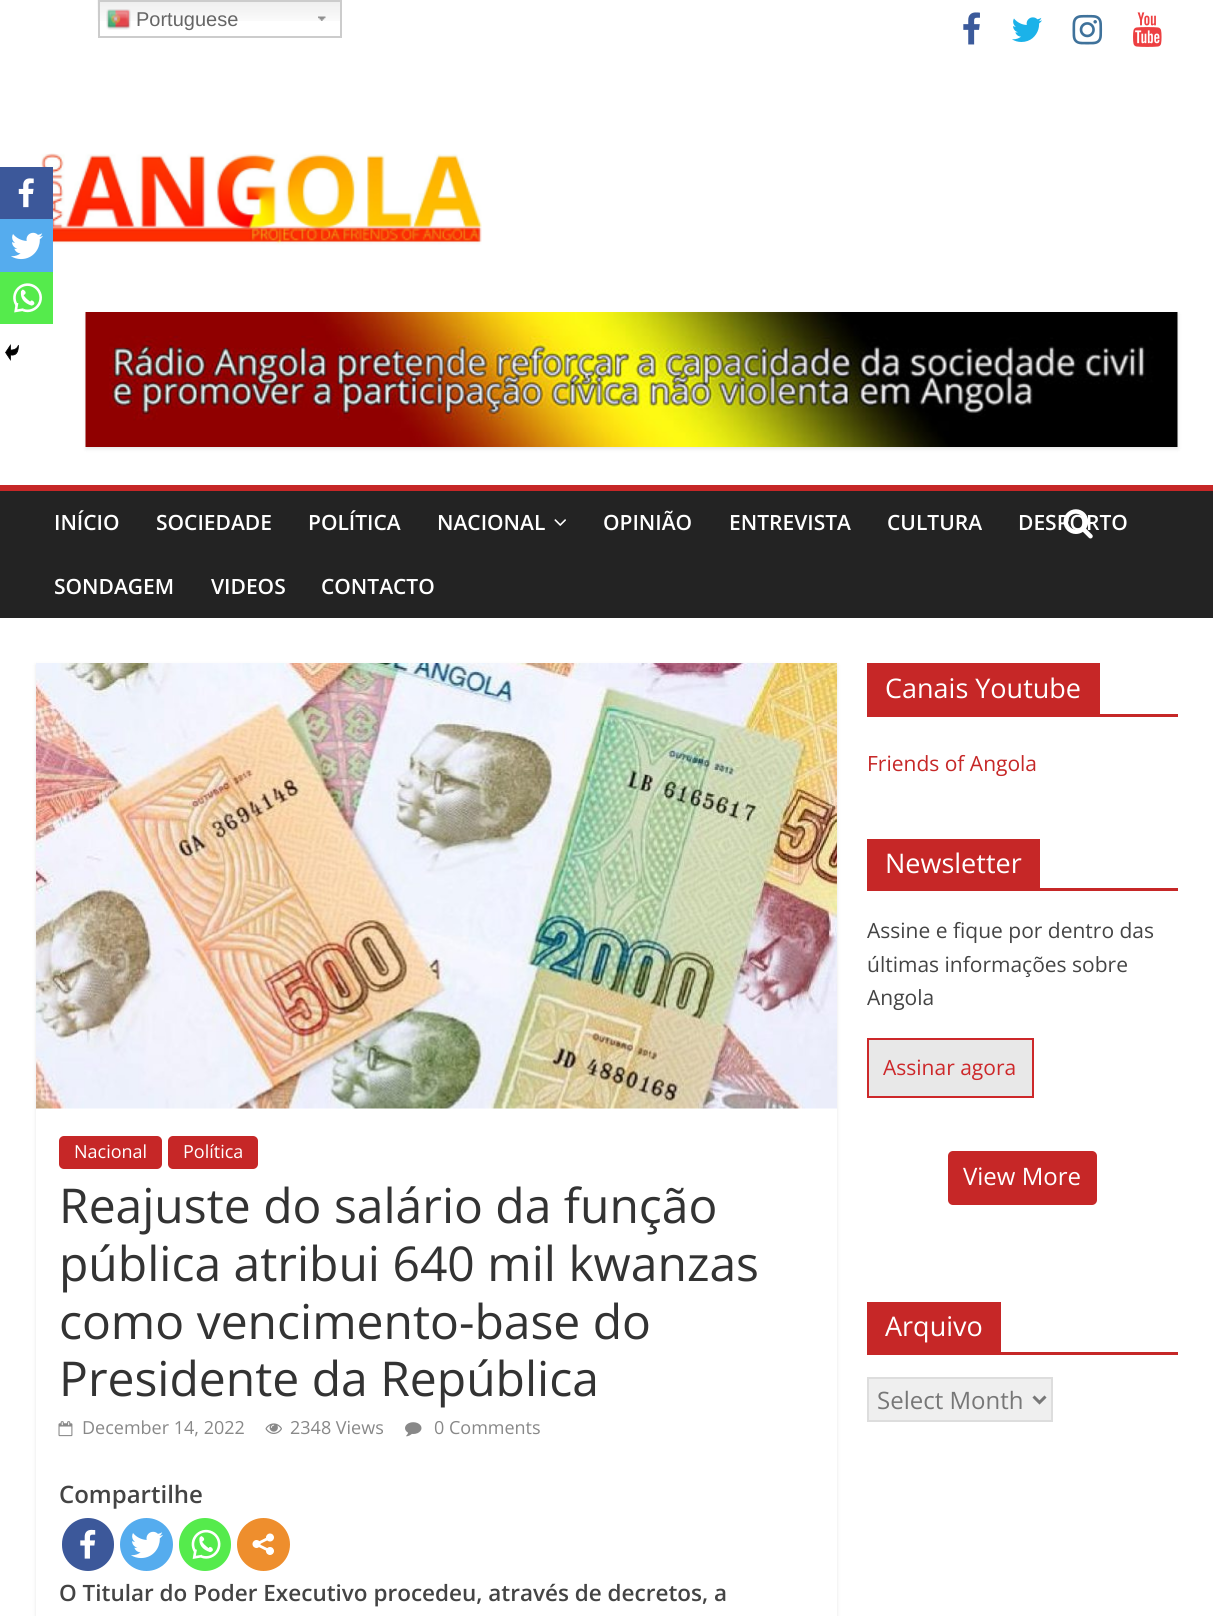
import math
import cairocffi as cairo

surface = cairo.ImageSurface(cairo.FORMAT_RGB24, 1213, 1616)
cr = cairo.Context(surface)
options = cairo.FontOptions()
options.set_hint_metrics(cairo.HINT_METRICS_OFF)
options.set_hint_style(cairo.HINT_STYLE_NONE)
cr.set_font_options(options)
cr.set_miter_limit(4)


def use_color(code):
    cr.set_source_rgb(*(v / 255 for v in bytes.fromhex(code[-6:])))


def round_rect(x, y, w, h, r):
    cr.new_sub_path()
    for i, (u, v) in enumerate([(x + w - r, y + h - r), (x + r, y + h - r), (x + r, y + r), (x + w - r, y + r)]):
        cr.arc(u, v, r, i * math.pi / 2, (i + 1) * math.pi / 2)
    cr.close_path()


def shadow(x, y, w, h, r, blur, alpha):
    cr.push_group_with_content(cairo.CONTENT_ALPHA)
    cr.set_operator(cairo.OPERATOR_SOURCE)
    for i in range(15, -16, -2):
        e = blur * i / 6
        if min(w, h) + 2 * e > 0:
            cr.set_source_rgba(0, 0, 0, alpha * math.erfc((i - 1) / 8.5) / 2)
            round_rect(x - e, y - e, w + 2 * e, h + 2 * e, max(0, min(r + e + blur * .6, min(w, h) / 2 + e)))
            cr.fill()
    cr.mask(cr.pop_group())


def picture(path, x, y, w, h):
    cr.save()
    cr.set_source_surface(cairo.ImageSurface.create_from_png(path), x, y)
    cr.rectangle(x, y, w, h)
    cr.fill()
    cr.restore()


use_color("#ffffff")
cr.paint()
picture("img1.png", 97, 0, 243, 21)
picture("img2.png", 318, 16, 8, 5)
cr.rectangle(99, 1, 242, 36)
use_color("#cccccc")
cr.stroke()
picture("img3.png", 106, 9, 25, 21)
cr.select_font_face("Liberation Sans")
cr.set_font_size(20)
use_color("#666666")
cr.move_to(136, 26)
cr.show_text("Portuguese")
picture("img4.png", 963, 12, 17, 33)
picture("img5.png", 1012, 17, 30, 25)
picture("img6.png", 1072, 14, 31, 31)
picture("img7.png", 1133, 12, 29, 35)
picture("img8.png", 36, 153, 446, 92)
use_color("#000000")
shadow(86, 314, 1092, 135, 0, 2, 0.1)
picture("img9.png", 85, 312, 1093, 135)
use_color("#232323")
cr.rectangle(0, 491, 1213, 127)
cr.fill()
use_color("#c62727")
cr.rectangle(0, 485, 1213, 6)
cr.fill()
cr.select_font_face("Open Sans SemiBold")
cr.set_font_size(21)
use_color("#ffffff")
cr.move_to(1018, 530)
cr.show_text("DESPORTO")
picture("img10.png", 1063, 509, 30, 30)
cr.move_to(54, 530)
cr.show_text("INÍCIO")
cr.move_to(156, 530)
cr.show_text("SOCIEDADE")
cr.move_to(308, 530)
cr.show_text("POLÍTICA")
cr.move_to(437, 530)
cr.show_text("NACIONAL")
picture("img11.png", 554, 519, 12, 7)
cr.move_to(603, 530)
cr.show_text("OPINIÃO")
cr.move_to(729, 530)
cr.show_text("ENTREVISTA")
cr.move_to(887, 530)
cr.show_text("CULTURA")
cr.move_to(54, 594)
cr.show_text("SONDAGEM")
cr.move_to(211, 594)
cr.show_text("VIDEOS")
cr.move_to(321, 594)
cr.show_text("CONTACTO")
cr.save()
cr.set_fill_rule(cairo.FILL_RULE_EVEN_ODD)
cr.new_path()
cr.move_to(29, 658)
cr.line_to(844, 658)
cr.line_to(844, 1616)
cr.line_to(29, 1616)
cr.close_path()
cr.move_to(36, 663)
cr.line_to(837, 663)
cr.line_to(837, 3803)
cr.line_to(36, 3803)
cr.close_path()
cr.clip()
use_color("#000000")
shadow(36, 665, 801, 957, 0, 2, 0.1)
cr.restore()
picture("img12.png", 36, 663, 801, 446)
use_color("#c62727")
round_rect(59, 1136, 103, 33, 5)
cr.fill()
cr.select_font_face("Open Sans")
cr.set_font_size(18)
use_color("#ffffff")
cr.move_to(74, 1158)
cr.show_text("Nacional")
use_color("#c62727")
round_rect(168, 1136, 90, 33, 5)
cr.fill()
use_color("#ffffff")
cr.move_to(183, 1158)
cr.show_text("Política")
cr.set_font_size(48)
use_color("#333333")
cr.move_to(59, 1223)
cr.show_text("Reajuste do salário da função")
cr.move_to(59, 1281)
cr.show_text("pública atribui 640 mil kwanzas")
cr.move_to(59, 1339)
cr.show_text("como vencimento-base do")
cr.move_to(59, 1396)
cr.show_text("Presidente da República")
picture("img13.png", 58, 1421, 15, 16)
cr.set_font_size(18)
use_color("#888888")
cr.move_to(82, 1434)
cr.show_text("December 14, 2022")
picture("img14.png", 265, 1423, 17, 11)
cr.move_to(290, 1434)
cr.show_text("2348 Views")
picture("img15.png", 405, 1422, 17, 15)
cr.move_to(434, 1434)
cr.show_text("0 Comments")
use_color("#3c589a")
cr.rectangle(0, 167, 53, 52)
cr.fill()
picture("img16.png", 18, 178, 16, 30)
use_color("#55acee")
cr.rectangle(0, 219, 53, 53)
cr.fill()
picture("img17.png", 11, 232, 32, 28)
use_color("#55eb4c")
cr.rectangle(0, 272, 53, 52)
cr.fill()
picture("img18.png", 13, 283, 29, 30)
picture("img19.png", 5, 344, 14, 17)
cr.select_font_face("Open Sans SemiBold")
cr.set_font_size(24)
use_color("#444444")
cr.move_to(59, 1503)
cr.show_text("Compartilhe")
use_color("#3c589a")
round_rect(62, 1518, 52, 53, 26)
cr.fill()
picture("img20.png", 80, 1529, 16, 30)
use_color("#55acee")
cr.arc(146.5, 1544.5, 26.5, 0, 2 * math.pi)
cr.fill()
picture("img17.png", 131, 1531, 32, 28)
use_color("#55eb4c")
round_rect(179, 1518, 52, 53, 26)
cr.fill()
picture("img21.png", 191, 1529, 30, 30)
use_color("#ee8e2d")
cr.arc(263.5, 1544.5, 26.5, 0, 2 * math.pi)
cr.fill()
picture("img22.png", 252, 1533, 22, 22)
cr.set_font_size(22.5)
use_color("#444444")
cr.move_to(59, 1601)
cr.show_text("O Titular do Poder Executivo procedeu, através de decretos, a")
use_color("#c62727")
cr.rectangle(867, 714, 311, 3)
cr.fill()
cr.rectangle(867, 663, 233, 51)
cr.fill()
cr.select_font_face("Open Sans")
cr.set_font_size(27)
use_color("#ffffff")
cr.move_to(885, 698)
cr.show_text("Canais Youtube")
cr.set_font_size(21)
use_color("#c62727")
cr.move_to(867, 771)
cr.show_text("Friends of Angola")
cr.rectangle(867, 888, 311, 3)
cr.fill()
cr.rectangle(867, 839, 173, 49)
cr.fill()
cr.set_font_size(27)
use_color("#ffffff")
cr.move_to(885, 873)
cr.show_text("Newsletter")
cr.set_font_size(21)
use_color("#444444")
cr.move_to(867, 938)
cr.show_text("Assine e fique por dentro das")
cr.move_to(867, 972)
cr.show_text("últimas informações sobre")
cr.move_to(867, 1005)
cr.show_text("Angola")
use_color("#e8e8e8")
cr.rectangle(868, 1039, 165, 58)
cr.fill_preserve()
use_color("#cd282a")
cr.stroke()
cr.move_to(883, 1075)
cr.show_text("Assinar agora")
use_color("#c62727")
round_rect(948, 1151, 149, 54, 5)
cr.fill()
cr.set_font_size(24)
use_color("#ffffff")
cr.move_to(963, 1185)
cr.show_text("View More")
use_color("#c62727")
cr.rectangle(867, 1352, 311, 3)
cr.fill()
cr.rectangle(867, 1302, 134, 50)
cr.fill()
cr.set_font_size(27)
use_color("#ffffff")
cr.move_to(885, 1336)
cr.show_text("Arquivo")
use_color("#efefef")
cr.rectangle(868, 1378, 184, 43)
cr.fill_preserve()
use_color("#dddddd")
cr.stroke()
cr.new_path()
cr.move_to(1033.5, 1396.5)
cr.line_to(1039.5, 1402.5)
cr.line_to(1045.5, 1396.5)
use_color("#777777")
cr.set_line_width(3)
cr.stroke()
cr.set_font_size(24)
cr.move_to(877, 1409)
cr.show_text("Select Month")
surface.write_to_png("result.png")
